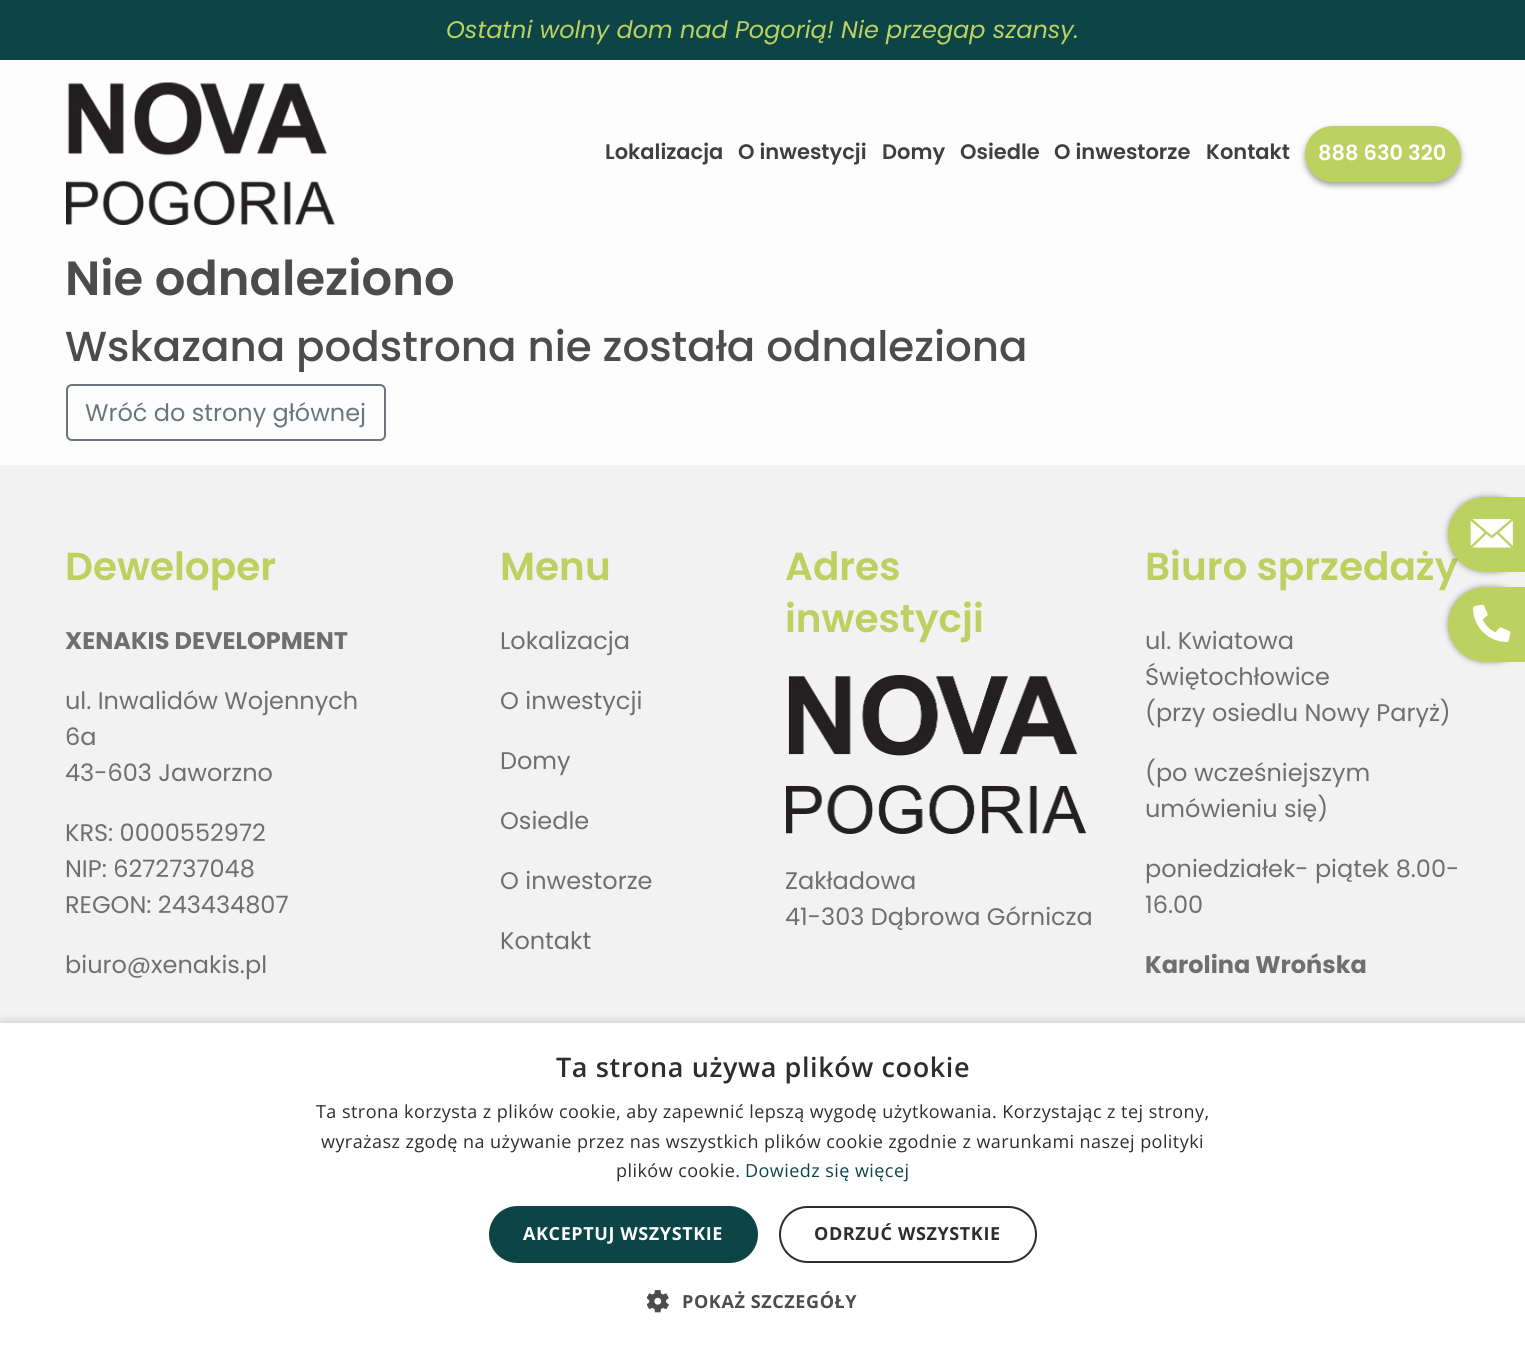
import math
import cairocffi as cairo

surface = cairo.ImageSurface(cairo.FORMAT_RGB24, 1525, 1351)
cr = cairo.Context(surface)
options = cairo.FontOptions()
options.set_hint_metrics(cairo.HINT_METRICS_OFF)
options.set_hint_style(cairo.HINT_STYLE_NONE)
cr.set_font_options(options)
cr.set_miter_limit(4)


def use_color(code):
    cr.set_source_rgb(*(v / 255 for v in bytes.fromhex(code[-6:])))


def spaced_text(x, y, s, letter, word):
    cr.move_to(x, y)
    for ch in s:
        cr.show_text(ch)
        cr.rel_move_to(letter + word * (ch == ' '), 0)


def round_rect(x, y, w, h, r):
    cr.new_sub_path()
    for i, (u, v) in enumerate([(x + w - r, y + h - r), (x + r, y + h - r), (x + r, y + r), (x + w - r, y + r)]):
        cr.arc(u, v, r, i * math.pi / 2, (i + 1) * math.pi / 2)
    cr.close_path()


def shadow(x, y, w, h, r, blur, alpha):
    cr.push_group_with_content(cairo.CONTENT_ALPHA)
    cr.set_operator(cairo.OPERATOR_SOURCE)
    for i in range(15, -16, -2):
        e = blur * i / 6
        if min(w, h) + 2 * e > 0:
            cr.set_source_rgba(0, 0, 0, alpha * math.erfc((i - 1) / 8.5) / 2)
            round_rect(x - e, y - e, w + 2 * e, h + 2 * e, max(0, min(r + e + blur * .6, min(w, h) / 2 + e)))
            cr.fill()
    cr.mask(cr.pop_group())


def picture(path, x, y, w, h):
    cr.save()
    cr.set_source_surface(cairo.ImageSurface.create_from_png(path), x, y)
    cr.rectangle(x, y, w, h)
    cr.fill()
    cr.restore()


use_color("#fdfdfd")
cr.paint()
use_color("#0d4546")
cr.rectangle(0, 0, 1525, 60)
cr.fill()
cr.select_font_face("Poppins", cairo.FONT_SLANT_ITALIC)
cr.set_font_size(24)
use_color("#bcd160")
cr.move_to(446, 38)
cr.show_text("Ostatni wolny dom nad Pogorią! Nie przegap szansy.")
picture("img1.png", 66, 82, 269, 143)
cr.select_font_face("Poppins SemiBold")
cr.set_font_size(21)
use_color("#3f3f3f")
cr.move_to(605, 159)
cr.show_text("Lokalizacja")
cr.move_to(738, 159)
cr.show_text("O inwestycji")
cr.move_to(882, 159)
cr.show_text("Domy")
cr.move_to(960, 159)
cr.show_text("Osiedle")
cr.move_to(1054, 159)
cr.show_text("O inwestorze")
cr.move_to(1206, 159)
cr.show_text("Kontakt")
use_color("#3b403d")
shadow(1305, 129, 156, 56, 28, 3, 0.5)
use_color("#bcd160")
round_rect(1306, 127, 154, 54, 27)
cr.fill_preserve()
cr.stroke()
use_color("#ffffff")
cr.move_to(1318, 160)
cr.show_text("888 630 320")
cr.set_font_size(48)
use_color("#4c4c4c")
cr.move_to(65, 295)
cr.show_text("Nie odnaleziono")
cr.select_font_face("Poppins Medium")
cr.set_font_size(42)
cr.move_to(65, 361)
cr.show_text("Wskazana podstrona nie została odnaleziona")
round_rect(67, 385, 318, 55, 5)
use_color("#6c757d")
cr.stroke()
cr.select_font_face("Poppins")
cr.set_font_size(24)
cr.move_to(85, 421)
cr.show_text("Wróć do strony głównej")
use_color("#f2f2f2")
cr.rectangle(0, 465, 1525, 558)
cr.fill()
cr.select_font_face("Poppins SemiBold")
cr.set_font_size(39)
use_color("#bcd160")
cr.move_to(65, 580)
cr.show_text("Deweloper")
cr.select_font_face("Poppins", cairo.FONT_SLANT_NORMAL, cairo.FONT_WEIGHT_BOLD)
cr.set_font_size(24)
use_color("#6f6f6f")
cr.move_to(65, 649)
cr.show_text("XENAKIS DEVELOPMENT")
cr.select_font_face("Poppins")
cr.move_to(65, 709)
cr.show_text("ul. Inwalidów Wojennych")
cr.move_to(65, 745)
cr.show_text("6a")
cr.move_to(65, 781)
cr.show_text("43-603 Jaworzno")
cr.move_to(65, 841)
cr.show_text("KRS: 0000552972")
cr.move_to(65, 877)
cr.show_text("NIP: 6272737048")
cr.move_to(65, 913)
cr.show_text("REGON: 243434807")
cr.move_to(65, 973)
cr.show_text("biuro@xenakis.pl")
cr.select_font_face("Poppins SemiBold")
cr.set_font_size(39)
use_color("#bcd160")
cr.move_to(500, 580)
cr.show_text("Menu")
cr.select_font_face("Poppins")
cr.set_font_size(24)
use_color("#6f6f6f")
cr.move_to(500, 649)
cr.show_text("Lokalizacja")
cr.move_to(500, 709)
cr.show_text("O inwestycji")
cr.move_to(500, 769)
cr.show_text("Domy")
cr.move_to(500, 829)
cr.show_text("Osiedle")
cr.move_to(500, 889)
cr.show_text("O inwestorze")
cr.move_to(500, 949)
cr.show_text("Kontakt")
cr.select_font_face("Poppins SemiBold")
cr.set_font_size(39)
use_color("#bcd160")
cr.move_to(785, 580)
cr.show_text("Adres")
cr.move_to(785, 632)
cr.show_text("inwestycji")
picture("img2.png", 786, 675, 300, 159)
cr.select_font_face("Poppins")
cr.set_font_size(24)
use_color("#6f6f6f")
cr.move_to(785, 889)
cr.show_text("Zakładowa")
cr.move_to(785, 925)
cr.show_text("41-303 Dąbrowa Górnicza")
cr.select_font_face("Poppins SemiBold")
cr.set_font_size(39)
use_color("#bcd160")
cr.move_to(1145, 580)
cr.show_text("Biuro sprzedaży")
cr.select_font_face("Poppins")
cr.set_font_size(24)
use_color("#6f6f6f")
cr.move_to(1145, 649)
cr.show_text("ul. Kwiatowa")
cr.move_to(1145, 685)
cr.show_text("Świętochłowice")
cr.move_to(1145, 721)
cr.show_text("(przy osiedlu Nowy Paryż)")
cr.move_to(1145, 781)
cr.show_text("(po wcześniejszym")
cr.move_to(1145, 817)
cr.show_text("umówieniu się)")
cr.move_to(1145, 877)
cr.show_text("poniedziałek- piątek 8.00-")
cr.move_to(1145, 913)
cr.show_text("16.00")
cr.select_font_face("Poppins", cairo.FONT_SLANT_NORMAL, cairo.FONT_WEIGHT_BOLD)
cr.move_to(1145, 973)
cr.show_text("Karolina Wrońska")
use_color("#000000")
shadow(1448, 497, 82, 75, 37.5, 3, 0.36)
use_color("#bcd160")
cr.new_path()
cr.move_to(1485.5, 497)
cr.line_to(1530, 497)
cr.line_to(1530, 572)
cr.line_to(1485.5, 572)
cr.curve_to(1465, 572, 1448, 555, 1448, 534.5)
cr.curve_to(1448, 514, 1465, 497, 1485.5, 497)
cr.close_path()
cr.fill()
picture("img3.png", 1470, 519, 43, 29)
use_color("#000000")
shadow(1448, 587, 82, 75, 37.5, 3, 0.36)
use_color("#bcd160")
cr.new_path()
cr.move_to(1485.5, 587)
cr.line_to(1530, 587)
cr.line_to(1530, 662)
cr.line_to(1485.5, 662)
cr.curve_to(1465, 662, 1448, 645, 1448, 624.5)
cr.curve_to(1448, 604, 1465, 587, 1485.5, 587)
cr.close_path()
cr.fill()
picture("img4.png", 1473, 605, 38, 37)
use_color("#000000")
shadow(2, 1026, 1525, 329, 0, 6, 0.35)
use_color("#ffffff")
cr.rectangle(0, 1023, 1525, 328)
cr.fill()
cr.select_font_face("Open Sans SemiBold")
cr.set_font_size(27)
use_color("#2d2d2d")
spaced_text(556, 1077, "Ta strona używa plików cookie", 0.6, 0)
cr.select_font_face("Open Sans")
cr.set_font_size(18)
spaced_text(316, 1118, "Ta strona korzysta z plików cookie, aby zapewnić lepszą wygodę użytkowania. Korzystając z tej strony,", 0.45, 0)
spaced_text(321, 1148, "wyrażasz zgodę na używanie przez nas wszystkich plików cookie zgodnie z warunkami naszej polityki", 0.45, 0)
spaced_text(616, 1177, "plików cookie.", 0.45, 0)
use_color("#0d4546")
spaced_text(745, 1177, "Dowiedz się więcej", 0.45, 0)
round_rect(489, 1206, 269, 57, 28.5)
cr.fill()
cr.select_font_face("Open Sans", cairo.FONT_SLANT_NORMAL, cairo.FONT_WEIGHT_BOLD)
use_color("#ffffff")
spaced_text(523, 1240, "AKCEPTUJ WSZYSTKIE", 0.6, 0)
round_rect(780, 1207, 256, 55, 27.5)
use_color("#2d2d2d")
cr.stroke()
spaced_text(814, 1240, "ODRZUĆ WSZYSTKIE", 0.6, 0)
picture("img5.png", 647, 1290, 22, 23)
use_color("#4c4c4c")
spaced_text(682, 1308, "POKAŻ SZCZEGÓŁY", 0.6, 0)
surface.write_to_png("result.png")
